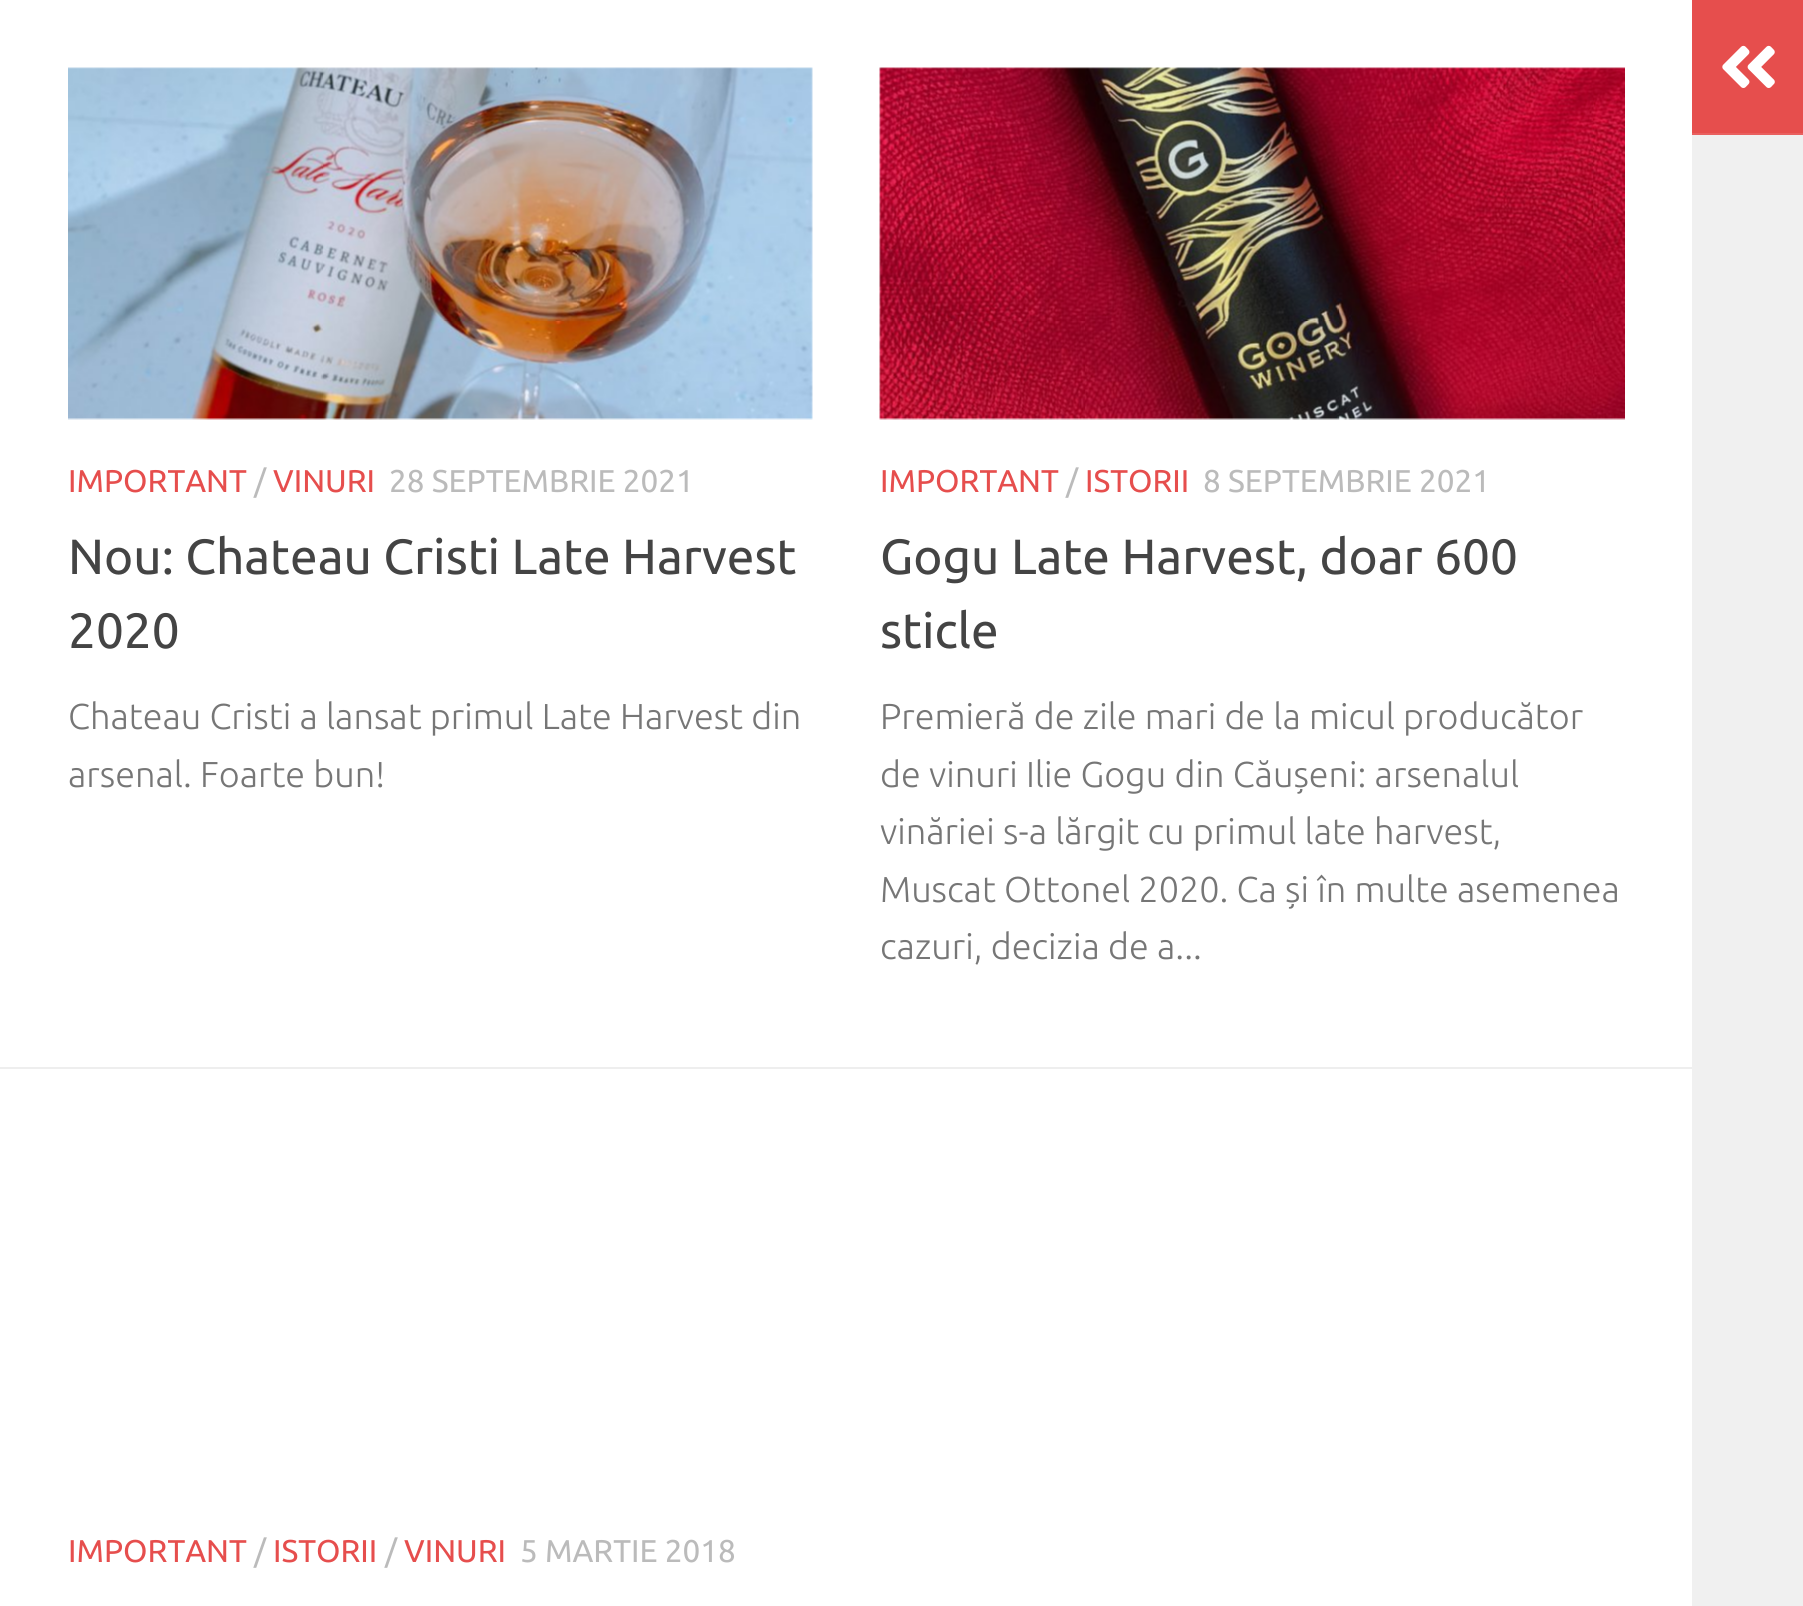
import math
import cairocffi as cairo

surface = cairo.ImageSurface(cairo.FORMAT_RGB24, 1803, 1606)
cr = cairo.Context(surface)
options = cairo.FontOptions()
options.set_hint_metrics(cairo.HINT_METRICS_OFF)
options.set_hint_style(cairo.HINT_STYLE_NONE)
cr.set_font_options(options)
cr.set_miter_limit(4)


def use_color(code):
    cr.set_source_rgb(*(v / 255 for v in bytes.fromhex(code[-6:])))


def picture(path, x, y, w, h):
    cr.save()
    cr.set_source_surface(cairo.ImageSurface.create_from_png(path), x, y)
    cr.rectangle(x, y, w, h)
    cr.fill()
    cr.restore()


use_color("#ffffff")
cr.paint()
use_color("#e64e4d")
cr.rectangle(1692, 0, 111, 133)
cr.fill()
use_color("#e9605f")
cr.rectangle(1692, 133, 111, 2)
cr.fill()
picture("img1.png", 1722, 45, 53, 43)
use_color("#eeeeee")
cr.rectangle(0, 1067, 1692, 2)
cr.fill()
picture("img2.png", 68, 67, 745, 353)
cr.select_font_face("Ubuntu")
cr.set_font_size(31.5)
use_color("#e64e4d")
cr.move_to(68, 492)
cr.show_text("IMPORTANT")
use_color("#bbbbbb")
cr.move_to(254, 492)
cr.show_text("/")
use_color("#e64e4d")
cr.move_to(273, 492)
cr.show_text("VINURI")
use_color("#bbbbbb")
cr.move_to(389, 492)
cr.show_text("28 SEPTEMBRIE 2021")
cr.set_font_size(49.5)
use_color("#444444")
cr.move_to(68, 574)
cr.show_text("Nou: Chateau Cristi Late Harvest")
cr.move_to(68, 648)
cr.show_text("2020")
cr.select_font_face("Ubuntu Light")
cr.set_font_size(36)
use_color("#767676")
cr.move_to(68, 729)
cr.show_text("Chateau Cristi a lansat primul Late Harvest din")
cr.move_to(68, 787)
cr.show_text("arsenal. Foarte bun!")
picture("img3.png", 879, 67, 746, 353)
cr.select_font_face("Ubuntu")
cr.set_font_size(31.5)
use_color("#e64e4d")
cr.move_to(880, 492)
cr.show_text("IMPORTANT")
use_color("#bbbbbb")
cr.move_to(1066, 492)
cr.show_text("/")
use_color("#e64e4d")
cr.move_to(1085, 492)
cr.show_text("ISTORII")
use_color("#bbbbbb")
cr.move_to(1203, 492)
cr.show_text("8 SEPTEMBRIE 2021")
cr.set_font_size(49.5)
use_color("#444444")
cr.move_to(880, 574)
cr.show_text("Gogu Late Harvest, doar 600")
cr.move_to(880, 648)
cr.show_text("sticle")
cr.select_font_face("Ubuntu Light")
cr.set_font_size(36)
use_color("#767676")
cr.move_to(880, 729)
cr.show_text("Premieră de zile mari de la micul producător")
cr.move_to(880, 787)
cr.show_text("de vinuri Ilie Gogu din Căușeni: arsenalul")
cr.move_to(880, 844)
cr.show_text("vinăriei s-a lărgit cu primul late harvest,")
cr.move_to(880, 902)
cr.show_text("Muscat Ottonel 2020. Ca și în multe asemenea")
cr.move_to(880, 959)
cr.show_text("cazuri, decizia de a...")
cr.select_font_face("Ubuntu")
cr.set_font_size(31.5)
use_color("#e64e4d")
cr.move_to(68, 1562)
cr.show_text("IMPORTANT")
use_color("#bbbbbb")
cr.move_to(254, 1562)
cr.show_text("/")
use_color("#e64e4d")
cr.move_to(273, 1562)
cr.show_text("ISTORII")
use_color("#bbbbbb")
cr.move_to(385, 1562)
cr.show_text("/")
use_color("#e64e4d")
cr.move_to(404, 1562)
cr.show_text("VINURI")
use_color("#bbbbbb")
cr.move_to(520, 1562)
cr.show_text("5 MARTIE 2018")
use_color("#f0f0f0")
cr.rectangle(1692, 135, 111, 1471)
cr.fill()
surface.write_to_png("result.png")
